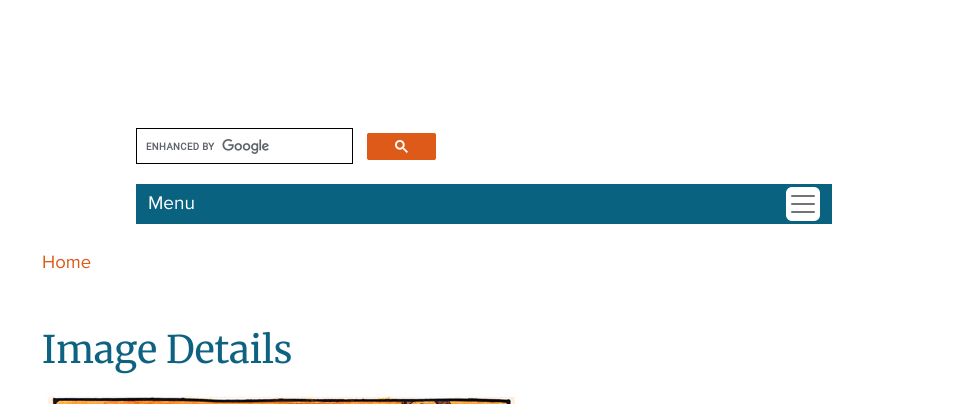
import math
import cairocffi as cairo

surface = cairo.ImageSurface(cairo.FORMAT_RGB24, 968, 404)
cr = cairo.Context(surface)
options = cairo.FontOptions()
options.set_hint_metrics(cairo.HINT_METRICS_OFF)
options.set_hint_style(cairo.HINT_STYLE_NONE)
cr.set_font_options(options)
cr.set_miter_limit(4)


def use_color(code):
    cr.set_source_rgb(*(v / 255 for v in bytes.fromhex(code[-6:])))


def round_rect(x, y, w, h, r):
    cr.new_sub_path()
    for i, (u, v) in enumerate([(x + w - r, y + h - r), (x + r, y + h - r), (x + r, y + r), (x + w - r, y + r)]):
        cr.arc(u, v, r, i * math.pi / 2, (i + 1) * math.pi / 2)
    cr.close_path()


def picture(path, x, y, w, h):
    cr.save()
    cr.set_source_surface(cairo.ImageSurface.create_from_png(path), x, y)
    cr.rectangle(x, y, w, h)
    cr.fill()
    cr.restore()


use_color("#ffffff")
cr.paint()
cr.rectangle(136.5, 128.5, 216, 35)
use_color("#000000")
cr.set_line_width(1)
cr.stroke()
picture("img1.png", 146, 139, 123, 15)
use_color("#dd5a18")
round_rect(367.5, 133.5, 68, 26, 1.5)
cr.fill_preserve()
cr.stroke()
picture("img2.png", 395, 140, 13, 13)
use_color("#096280")
cr.rectangle(136, 184, 696, 40)
cr.fill()
cr.select_font_face("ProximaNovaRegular")
cr.set_font_size(19)
use_color("#ffffff")
cr.move_to(148, 209)
cr.show_text("Menu")
round_rect(786, 187, 34, 34, 6)
cr.fill()
picture("img3.png", 791, 195, 24, 18)
cr.set_font_size(18.5)
use_color("#dd5a18")
cr.move_to(42, 268)
cr.show_text("Home")
cr.select_font_face("Merriweather")
cr.set_font_size(38)
use_color("#0d6281")
cr.move_to(42, 363)
cr.show_text("Image Details")
picture("img4.png", 45, 393, 470, 11)
surface.write_to_png("result.png")
